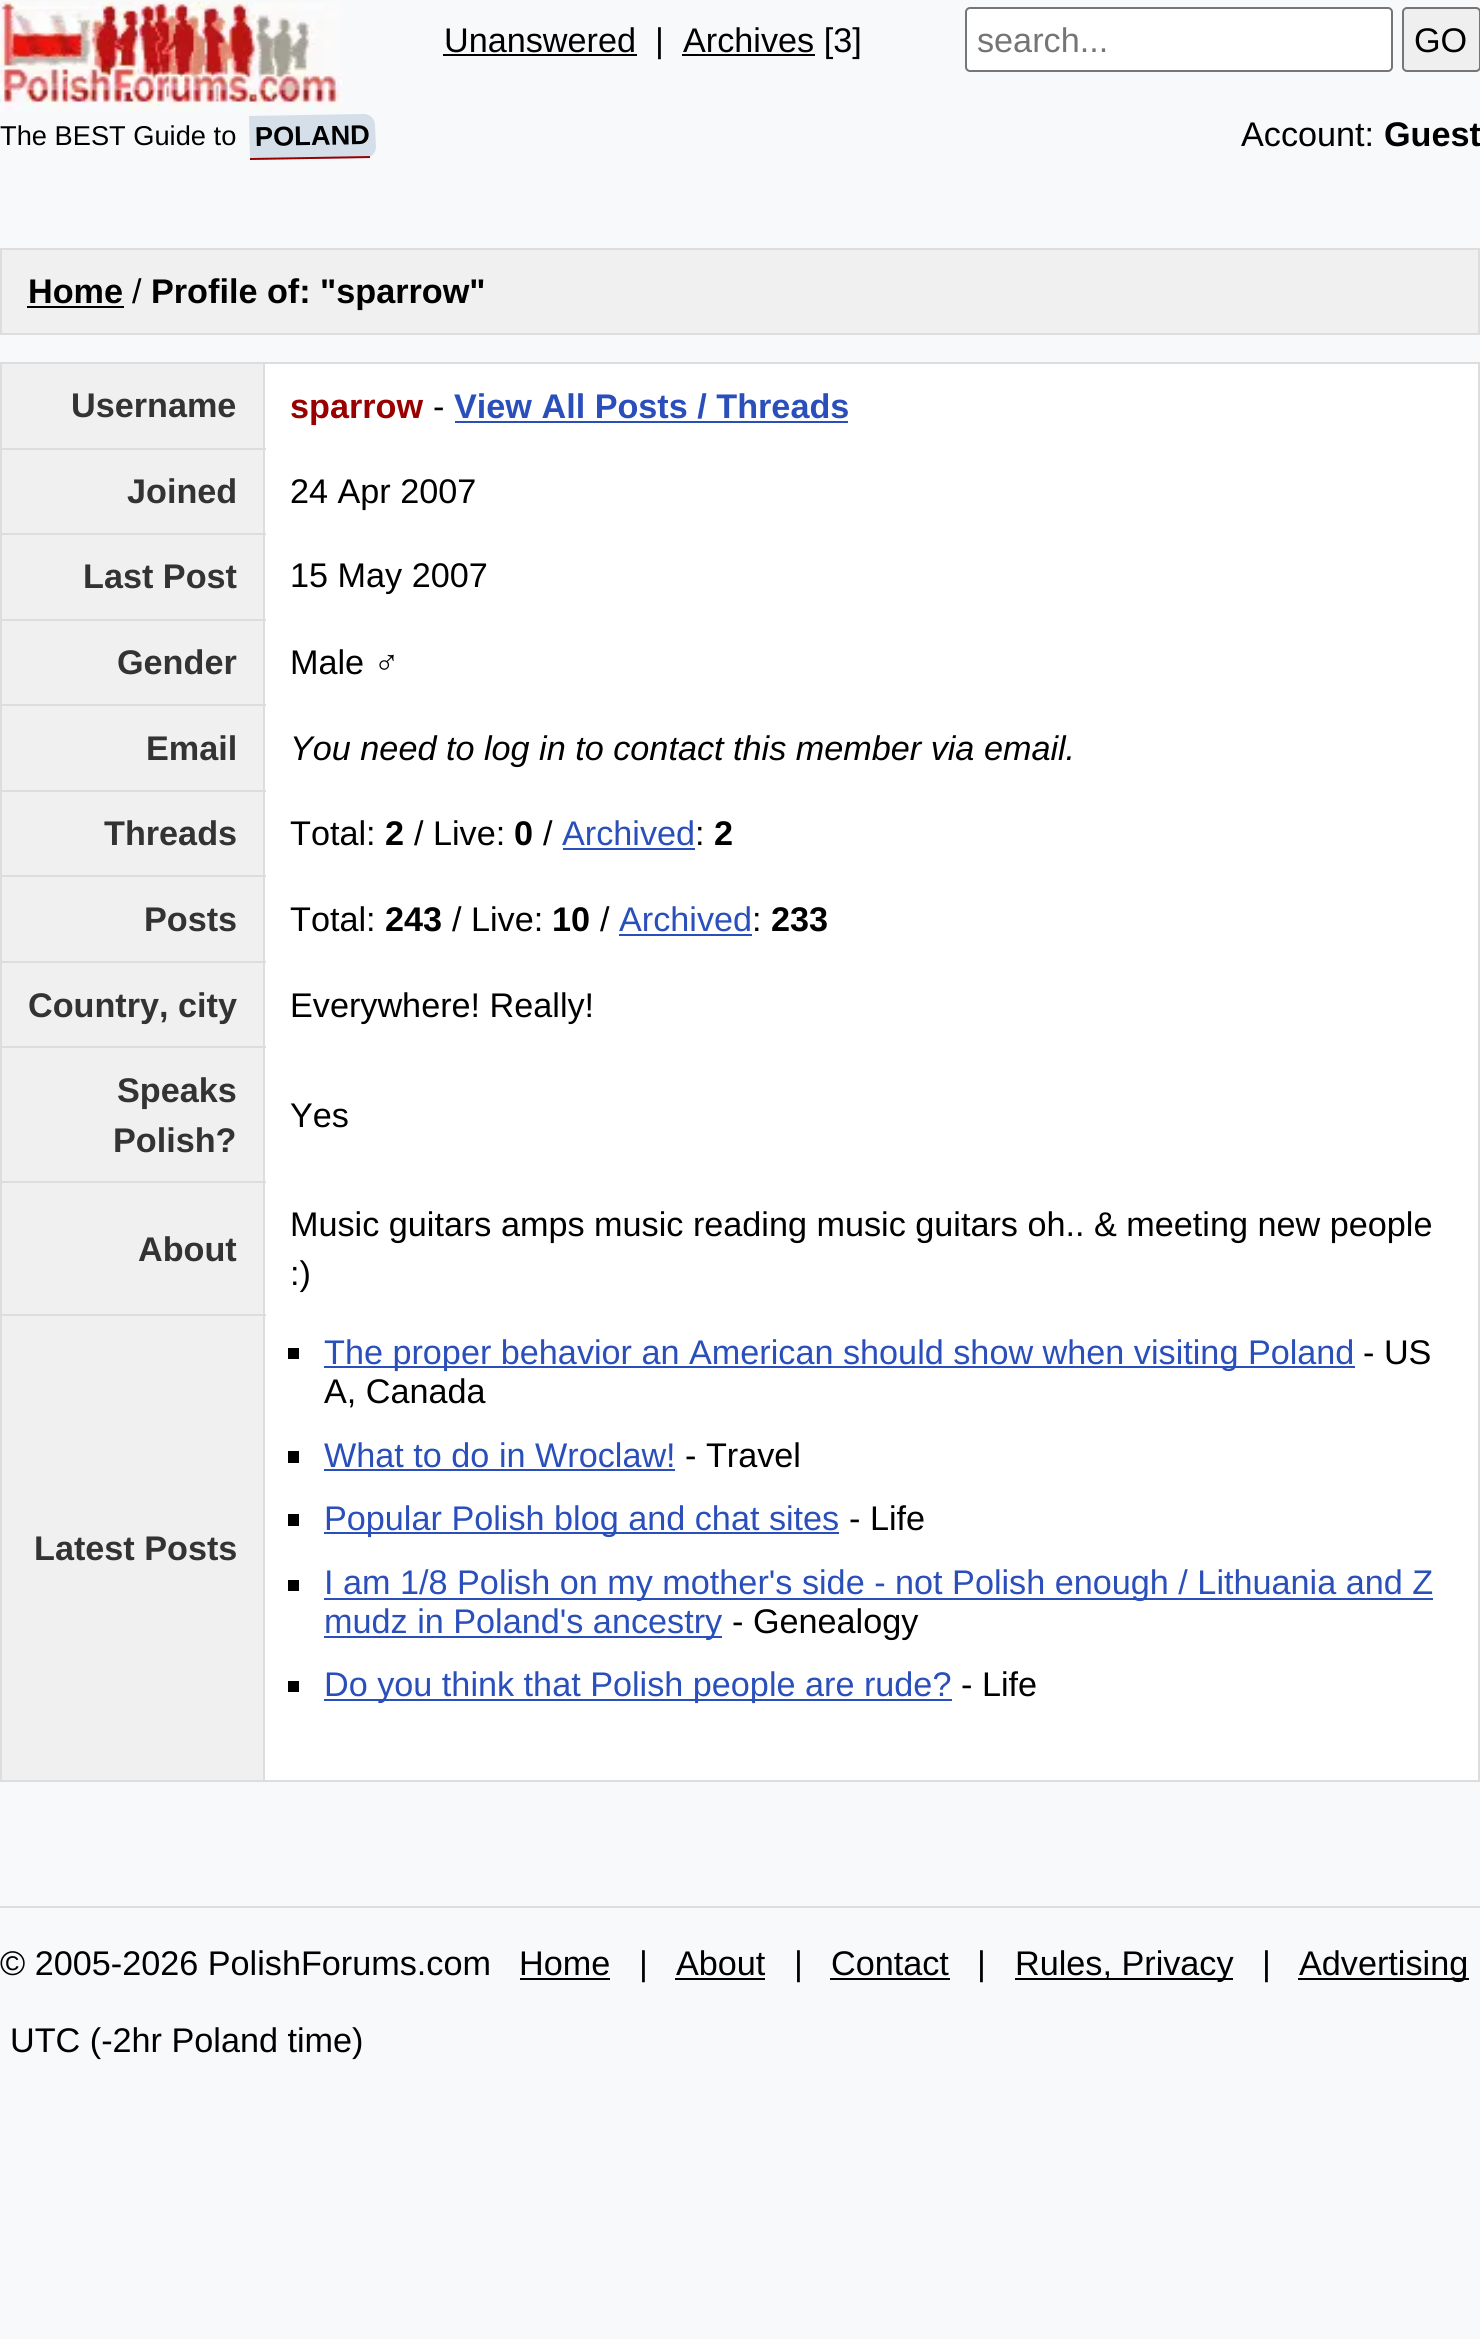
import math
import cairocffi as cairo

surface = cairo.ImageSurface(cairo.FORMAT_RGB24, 1480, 2339)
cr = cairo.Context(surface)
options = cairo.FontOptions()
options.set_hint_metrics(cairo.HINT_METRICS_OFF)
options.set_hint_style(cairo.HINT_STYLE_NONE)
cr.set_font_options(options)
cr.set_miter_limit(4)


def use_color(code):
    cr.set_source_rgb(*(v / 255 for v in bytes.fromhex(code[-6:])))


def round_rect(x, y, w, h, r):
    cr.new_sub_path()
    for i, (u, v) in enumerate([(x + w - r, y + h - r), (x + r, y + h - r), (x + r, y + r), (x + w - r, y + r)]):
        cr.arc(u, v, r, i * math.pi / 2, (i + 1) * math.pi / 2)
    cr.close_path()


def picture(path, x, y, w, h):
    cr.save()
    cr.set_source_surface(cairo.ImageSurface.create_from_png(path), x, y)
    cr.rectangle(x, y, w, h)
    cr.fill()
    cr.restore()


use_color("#f7f9fb")
cr.paint()
picture("img1.png", 0, 2, 342, 109)
cr.select_font_face("Liberation Sans")
cr.set_font_size(27.25)
use_color("#000000")
cr.move_to(0, 145)
cr.show_text("The BEST Guide to")
use_color("#d4dfea")
cr.new_path()
cr.move_to(249, 116)
cr.line_to(364, 114)
cr.curve_to(370, 114, 375, 119, 375, 125)
cr.line_to(376, 147)
cr.curve_to(376, 153, 371, 158, 365, 158)
cr.line_to(250, 160)
cr.close_path()
cr.fill()
use_color("#990000")
cr.new_path()
cr.move_to(250, 158)
cr.line_to(370, 156)
cr.line_to(370, 158)
cr.line_to(250, 160)
cr.close_path()
cr.fill()
cr.select_font_face("Liberation Sans", cairo.FONT_SLANT_NORMAL, cairo.FONT_WEIGHT_BOLD)
use_color("#000000")
cr.save()
cr.translate(255, 146)
cr.rotate(-1 * math.pi / 180)
cr.move_to(0, 0)
cr.show_text("POLAND")
cr.restore()
cr.select_font_face("Liberation Sans")
cr.set_font_size(34.2)
cr.move_to(444, 52)
cr.show_text("Unanswered")
cr.rectangle(443, 54, 194, 2)
cr.fill()
cr.move_to(655, 52)
cr.show_text("|")
cr.rectangle(682, 54, 133, 2)
cr.fill()
cr.move_to(683, 52)
cr.show_text("Archives [3]")
use_color("#ffffff")
round_rect(966, 8, 426, 63, 4)
cr.fill_preserve()
use_color("#767676")
cr.stroke()
use_color("#757575")
cr.move_to(977, 52)
cr.show_text("search...")
use_color("#efefef")
round_rect(1403, 8, 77, 63, 4)
cr.fill_preserve()
use_color("#767676")
cr.stroke()
use_color("#000000")
cr.move_to(1414, 52)
cr.show_text("GO")
cr.move_to(1241, 146)
cr.show_text("Account:")
cr.select_font_face("Liberation Sans", cairo.FONT_SLANT_NORMAL, cairo.FONT_WEIGHT_BOLD)
cr.move_to(1384, 146)
cr.show_text("Guest")
use_color("#dddddd")
cr.rectangle(0, 248, 1480, 2)
cr.fill()
cr.rectangle(1478, 248, 2, 87)
cr.fill()
cr.rectangle(0, 333, 1480, 2)
cr.fill()
cr.rectangle(0, 248, 2, 87)
cr.fill()
use_color("#f0f0f0")
cr.rectangle(2, 250, 1476, 83)
cr.fill()
use_color("#000000")
cr.move_to(28, 303)
cr.show_text("Home")
cr.rectangle(27, 306, 97, 2)
cr.fill()
cr.select_font_face("Liberation Sans")
cr.move_to(132, 303)
cr.show_text("/")
cr.select_font_face("Liberation Sans", cairo.FONT_SLANT_NORMAL, cairo.FONT_WEIGHT_BOLD)
cr.move_to(151, 303)
cr.show_text("Profile of: \"sparrow\"")
use_color("#ffffff")
cr.rectangle(265, 364, 1213, 1416)
cr.fill()
use_color("#dddddd")
cr.rectangle(0, 362, 1480, 2)
cr.fill()
cr.rectangle(1478, 362, 2, 1420)
cr.fill()
cr.rectangle(0, 1780, 1480, 2)
cr.fill()
cr.rectangle(0, 362, 2, 1420)
cr.fill()
use_color("#f0f0f0")
cr.rectangle(2, 364, 261, 84)
cr.fill()
use_color("#333333")
cr.move_to(71, 417)
cr.show_text("Username")
use_color("#990000")
cr.move_to(290, 418)
cr.show_text("sparrow")
cr.select_font_face("Liberation Sans")
use_color("#000000")
cr.move_to(433, 418)
cr.show_text("-")
cr.select_font_face("Liberation Sans", cairo.FONT_SLANT_NORMAL, cairo.FONT_WEIGHT_BOLD)
use_color("#2a4fba")
cr.move_to(454, 418)
cr.show_text("View All Posts / Threads")
cr.rectangle(455, 421, 393, 2)
cr.fill()
use_color("#f0f0f0")
cr.rectangle(2, 450, 261, 83)
cr.fill()
use_color("#dddddd")
cr.rectangle(0, 448, 266, 2)
cr.fill()
cr.rectangle(0, 533, 266, 2)
cr.fill()
cr.rectangle(0, 619, 266, 2)
cr.fill()
use_color("#f0f0f0")
cr.rectangle(2, 621, 261, 169)
cr.fill()
use_color("#dddddd")
cr.rectangle(0, 704, 266, 2)
cr.fill()
cr.rectangle(0, 790, 266, 2)
cr.fill()
use_color("#f0f0f0")
cr.rectangle(2, 792, 261, 169)
cr.fill()
use_color("#dddddd")
cr.rectangle(0, 875, 266, 2)
cr.fill()
cr.rectangle(0, 961, 266, 2)
cr.fill()
use_color("#f0f0f0")
cr.rectangle(2, 963, 261, 351)
cr.fill()
use_color("#dddddd")
cr.rectangle(0, 1046, 266, 2)
cr.fill()
cr.rectangle(0, 1181, 266, 2)
cr.fill()
cr.rectangle(0, 1314, 266, 2)
cr.fill()
cr.rectangle(263, 1314, 2, 468)
cr.fill()
cr.rectangle(263, 1181, 2, 135)
cr.fill()
cr.rectangle(263, 1046, 2, 138)
cr.fill()
cr.rectangle(263, 961, 2, 88)
cr.fill()
cr.rectangle(263, 875, 2, 88)
cr.fill()
cr.rectangle(263, 790, 2, 88)
cr.fill()
cr.rectangle(263, 704, 2, 88)
cr.fill()
cr.rectangle(263, 619, 2, 88)
cr.fill()
cr.rectangle(263, 533, 2, 88)
cr.fill()
cr.rectangle(263, 362, 2, 174)
cr.fill()
use_color("#333333")
cr.move_to(127, 503)
cr.show_text("Joined")
cr.select_font_face("Liberation Sans")
use_color("#000000")
cr.move_to(290, 503)
cr.show_text("24 Apr 2007")
use_color("#f0f0f0")
cr.rectangle(2, 535, 261, 84)
cr.fill()
cr.select_font_face("Liberation Sans", cairo.FONT_SLANT_NORMAL, cairo.FONT_WEIGHT_BOLD)
use_color("#333333")
cr.move_to(83, 588)
cr.show_text("Last Post")
cr.select_font_face("Liberation Sans")
use_color("#000000")
cr.move_to(290, 587)
cr.show_text("15 May 2007")
cr.select_font_face("Liberation Sans", cairo.FONT_SLANT_NORMAL, cairo.FONT_WEIGHT_BOLD)
use_color("#333333")
cr.move_to(117, 674)
cr.show_text("Gender")
cr.select_font_face("Liberation Sans")
use_color("#000000")
cr.move_to(290, 674)
cr.show_text("Male ♂")
cr.select_font_face("Liberation Sans", cairo.FONT_SLANT_NORMAL, cairo.FONT_WEIGHT_BOLD)
use_color("#333333")
cr.move_to(146, 760)
cr.show_text("Email")
cr.select_font_face("Liberation Sans", cairo.FONT_SLANT_ITALIC)
use_color("#000000")
cr.move_to(290, 760)
cr.show_text("You need to log in to contact this member via email.")
cr.select_font_face("Liberation Sans", cairo.FONT_SLANT_NORMAL, cairo.FONT_WEIGHT_BOLD)
use_color("#333333")
cr.move_to(104, 845)
cr.show_text("Threads")
cr.select_font_face("Liberation Sans")
use_color("#000000")
cr.move_to(290, 845)
cr.show_text("Total:")
cr.select_font_face("Liberation Sans", cairo.FONT_SLANT_NORMAL, cairo.FONT_WEIGHT_BOLD)
cr.move_to(385, 845)
cr.show_text("2")
cr.select_font_face("Liberation Sans")
cr.move_to(414, 845)
cr.show_text("/ Live:")
cr.select_font_face("Liberation Sans", cairo.FONT_SLANT_NORMAL, cairo.FONT_WEIGHT_BOLD)
cr.move_to(514, 845)
cr.show_text("0")
cr.select_font_face("Liberation Sans")
cr.move_to(543, 845)
cr.show_text("/")
use_color("#2a4fba")
cr.move_to(562, 845)
cr.show_text("Archived")
cr.rectangle(563, 848, 132, 2)
cr.fill()
use_color("#000000")
cr.move_to(695, 845)
cr.show_text(":")
cr.select_font_face("Liberation Sans", cairo.FONT_SLANT_NORMAL, cairo.FONT_WEIGHT_BOLD)
cr.move_to(714, 845)
cr.show_text("2")
use_color("#333333")
cr.move_to(144, 931)
cr.show_text("Posts")
cr.select_font_face("Liberation Sans")
use_color("#000000")
cr.move_to(290, 931)
cr.show_text("Total:")
cr.select_font_face("Liberation Sans", cairo.FONT_SLANT_NORMAL, cairo.FONT_WEIGHT_BOLD)
cr.move_to(385, 931)
cr.show_text("243")
cr.select_font_face("Liberation Sans")
cr.move_to(452, 931)
cr.show_text("/ Live:")
cr.select_font_face("Liberation Sans", cairo.FONT_SLANT_NORMAL, cairo.FONT_WEIGHT_BOLD)
cr.move_to(552, 931)
cr.show_text("10")
cr.select_font_face("Liberation Sans")
cr.move_to(600, 931)
cr.show_text("/")
use_color("#2a4fba")
cr.move_to(619, 931)
cr.show_text("Archived")
cr.rectangle(619, 934, 133, 2)
cr.fill()
use_color("#000000")
cr.move_to(752, 931)
cr.show_text(":")
cr.select_font_face("Liberation Sans", cairo.FONT_SLANT_NORMAL, cairo.FONT_WEIGHT_BOLD)
cr.move_to(771, 931)
cr.show_text("233")
use_color("#333333")
cr.move_to(28, 1017)
cr.show_text("Country, city")
cr.select_font_face("Liberation Sans")
use_color("#000000")
cr.move_to(290, 1017)
cr.show_text("Everywhere! Really!")
cr.select_font_face("Liberation Sans", cairo.FONT_SLANT_NORMAL, cairo.FONT_WEIGHT_BOLD)
use_color("#333333")
cr.move_to(117, 1102)
cr.show_text("Speaks")
cr.move_to(113, 1152)
cr.show_text("Polish?")
cr.select_font_face("Liberation Sans")
use_color("#000000")
cr.move_to(290, 1127)
cr.show_text("Yes")
cr.select_font_face("Liberation Sans", cairo.FONT_SLANT_NORMAL, cairo.FONT_WEIGHT_BOLD)
use_color("#333333")
cr.move_to(138, 1261)
cr.show_text("About")
cr.select_font_face("Liberation Sans")
use_color("#000000")
cr.move_to(290, 1236)
cr.show_text("Music guitars amps music reading music guitars oh.. & meeting new people")
cr.move_to(290, 1285)
cr.show_text(":)")
use_color("#f0f0f0")
cr.rectangle(2, 1316, 261, 464)
cr.fill()
cr.select_font_face("Liberation Sans", cairo.FONT_SLANT_NORMAL, cairo.FONT_WEIGHT_BOLD)
use_color("#333333")
cr.move_to(34, 1560)
cr.show_text("Latest Posts")
use_color("#000000")
cr.rectangle(288, 1348, 11, 11)
cr.fill()
use_color("#2a4fba")
cr.rectangle(324, 1366, 1031, 2)
cr.fill()
cr.select_font_face("Liberation Sans")
cr.move_to(324, 1364)
cr.show_text("The proper behavior an American should show when visiting Poland")
use_color("#000000")
cr.move_to(1363, 1364)
cr.show_text("- US")
cr.move_to(324, 1403)
cr.show_text("A, Canada")
cr.rectangle(288, 1451, 11, 12)
cr.fill()
use_color("#2a4fba")
cr.move_to(324, 1467)
cr.show_text("What to do in Wroclaw!")
cr.rectangle(324, 1469, 351, 2)
cr.fill()
use_color("#000000")
cr.move_to(685, 1467)
cr.show_text("- Travel")
cr.rectangle(288, 1514, 11, 12)
cr.fill()
use_color("#2a4fba")
cr.rectangle(324, 1532, 515, 2)
cr.fill()
cr.move_to(324, 1530)
cr.show_text("Popular Polish blog and chat sites")
use_color("#000000")
cr.move_to(849, 1530)
cr.show_text("- Life")
cr.rectangle(288, 1580, 11, 11)
cr.fill()
use_color("#2a4fba")
cr.rectangle(324, 1598, 1109, 2)
cr.fill()
cr.move_to(324, 1594)
cr.show_text("I am 1/8 Polish on my mother's side - not Polish enough / Lithuania and Z")
cr.rectangle(324, 1636, 398, 2)
cr.fill()
cr.move_to(324, 1633)
cr.show_text("mudz in Poland's ancestry")
use_color("#000000")
cr.move_to(732, 1633)
cr.show_text("- Genealogy")
cr.rectangle(288, 1681, 11, 11)
cr.fill()
use_color("#2a4fba")
cr.rectangle(324, 1699, 628, 2)
cr.fill()
cr.move_to(324, 1696)
cr.show_text("Do you think that Polish people are rude?")
use_color("#000000")
cr.move_to(961, 1696)
cr.show_text("- Life")
use_color("#dddddd")
cr.rectangle(0, 1906, 1480, 2)
cr.fill()
use_color("#000000")
cr.move_to(0, 1975)
cr.show_text("© 2005-2026 PolishForums.com")
cr.move_to(519, 1975)
cr.show_text("Home")
cr.rectangle(520, 1978, 90, 2)
cr.fill()
cr.move_to(639, 1975)
cr.show_text("|")
cr.move_to(676, 1975)
cr.show_text("About")
cr.rectangle(675, 1978, 90, 2)
cr.fill()
cr.move_to(794, 1975)
cr.show_text("|")
cr.move_to(831, 1975)
cr.show_text("Contact")
cr.rectangle(830, 1978, 120, 2)
cr.fill()
cr.move_to(977, 1975)
cr.show_text("|")
cr.rectangle(1015, 1978, 218, 2)
cr.fill()
cr.move_to(1015, 1975)
cr.show_text("Rules, Privacy")
cr.move_to(1262, 1975)
cr.show_text("|")
cr.rectangle(1298, 1978, 171, 2)
cr.fill()
cr.move_to(1299, 1975)
cr.show_text("Advertising")
cr.move_to(10, 2052)
cr.show_text("UTC (-2hr Poland time)")
surface.write_to_png("result.png")
